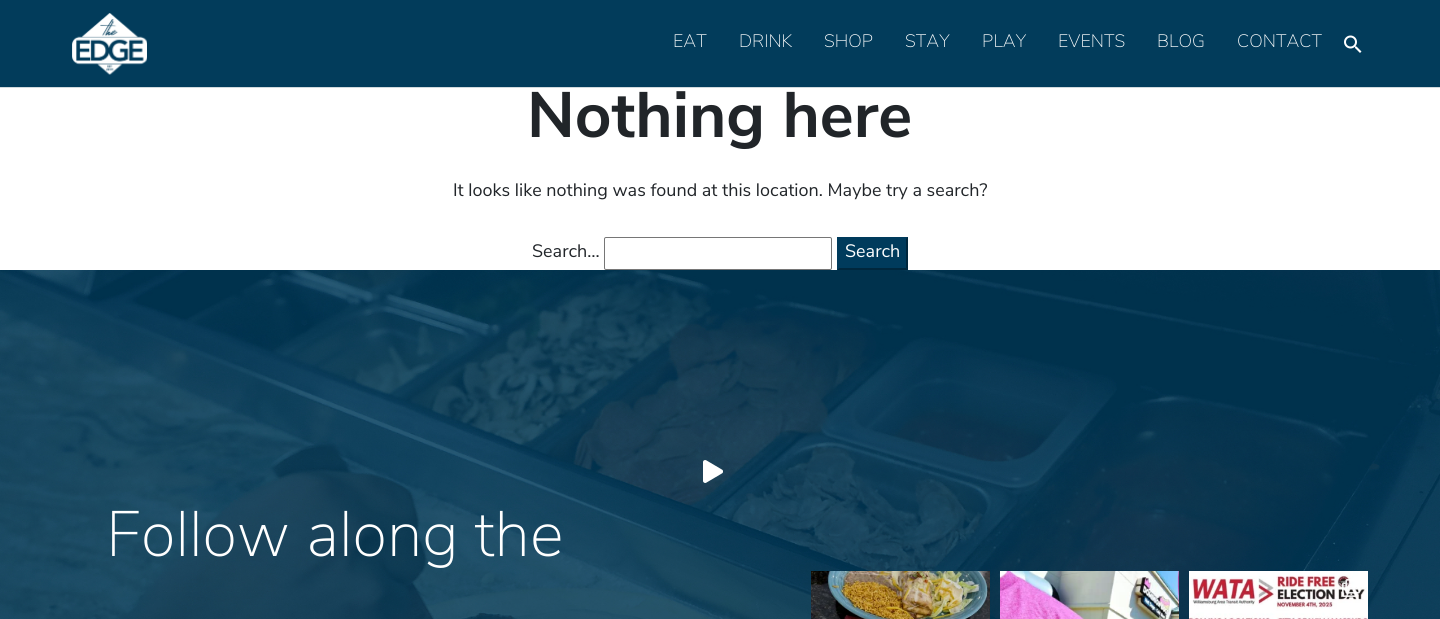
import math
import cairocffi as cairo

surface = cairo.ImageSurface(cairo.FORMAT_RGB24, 1440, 619)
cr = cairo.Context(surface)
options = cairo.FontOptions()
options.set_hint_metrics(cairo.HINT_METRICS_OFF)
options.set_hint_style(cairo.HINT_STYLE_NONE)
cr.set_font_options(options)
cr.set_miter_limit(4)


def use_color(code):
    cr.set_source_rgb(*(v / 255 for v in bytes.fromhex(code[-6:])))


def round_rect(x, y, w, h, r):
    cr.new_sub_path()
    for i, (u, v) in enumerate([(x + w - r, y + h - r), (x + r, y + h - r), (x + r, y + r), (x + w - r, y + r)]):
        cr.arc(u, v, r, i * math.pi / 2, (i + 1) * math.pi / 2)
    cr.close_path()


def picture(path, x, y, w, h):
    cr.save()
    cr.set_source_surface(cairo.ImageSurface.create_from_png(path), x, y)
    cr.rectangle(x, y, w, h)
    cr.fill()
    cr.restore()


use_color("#ffffff")
cr.paint()
use_color("#023c5b")
cr.rectangle(0, 0, 1440, 87)
cr.fill()
use_color("#d1dade")
cr.rectangle(0, 87, 1440, 1)
cr.fill()
picture("img1.png", 72, 13, 75, 62)
cr.select_font_face("Nunito Sans ExtraLight")
cr.set_font_size(18)
use_color("#ffffff")
cr.move_to(673, 47)
cr.show_text("EAT")
cr.move_to(739, 47)
cr.show_text("DRINK")
cr.move_to(824, 47)
cr.show_text("SHOP")
cr.move_to(905, 47)
cr.show_text("STAY")
cr.move_to(982, 47)
cr.show_text("PLAY")
cr.move_to(1058, 47)
cr.show_text("EVENTS")
cr.move_to(1157, 47)
cr.show_text("BLOG")
cr.move_to(1237, 47)
cr.show_text("CONTACT")
picture("img2.png", 1344, 35, 18, 18)
cr.select_font_face("Nunito Sans", cairo.FONT_SLANT_NORMAL, cairo.FONT_WEIGHT_BOLD)
cr.set_font_size(64)
use_color("#212529")
cr.move_to(527, 137)
cr.show_text("Nothing here")
cr.select_font_face("Nunito Sans")
cr.set_font_size(18)
cr.move_to(453, 196)
cr.show_text("It looks like nothing was found at this location. Maybe try a search?")
cr.move_to(532, 257)
cr.show_text("Search…")
round_rect(604.5, 237.5, 227, 32, 1.5)
use_color("#767676")
cr.set_line_width(1)
cr.stroke()
use_color("#003b5c")
cr.rectangle(837, 237, 71, 33)
cr.fill()
use_color("#00273d")
cr.new_path()
cr.move_to(908, 237)
cr.line_to(908, 270)
cr.line_to(906, 268)
cr.line_to(906, 239)
cr.close_path()
cr.fill()
cr.new_path()
cr.move_to(908, 270)
cr.line_to(837, 270)
cr.line_to(839, 268)
cr.line_to(906, 268)
cr.close_path()
cr.fill()
use_color("#003b5c")
cr.new_path()
cr.move_to(837, 270)
cr.line_to(837, 237)
cr.line_to(839, 239)
cr.line_to(839, 268)
cr.close_path()
cr.fill()
use_color("#ffffff")
cr.move_to(845, 257)
cr.show_text("Search")
picture("img3.png", 0, 270, 1440, 349)
cr.select_font_face("Nunito Sans ExtraLight")
cr.set_font_size(64)
cr.move_to(106, 556)
cr.show_text("Follow along the")
picture("img4.png", 703, 460, 20, 23)
picture("img5.png", 811, 571, 179, 48)
picture("img6.png", 1000, 571, 179, 48)
picture("img7.png", 1189, 571, 179, 48)
picture("img8.png", 1342, 579, 18, 18)
surface.write_to_png("result.png")
